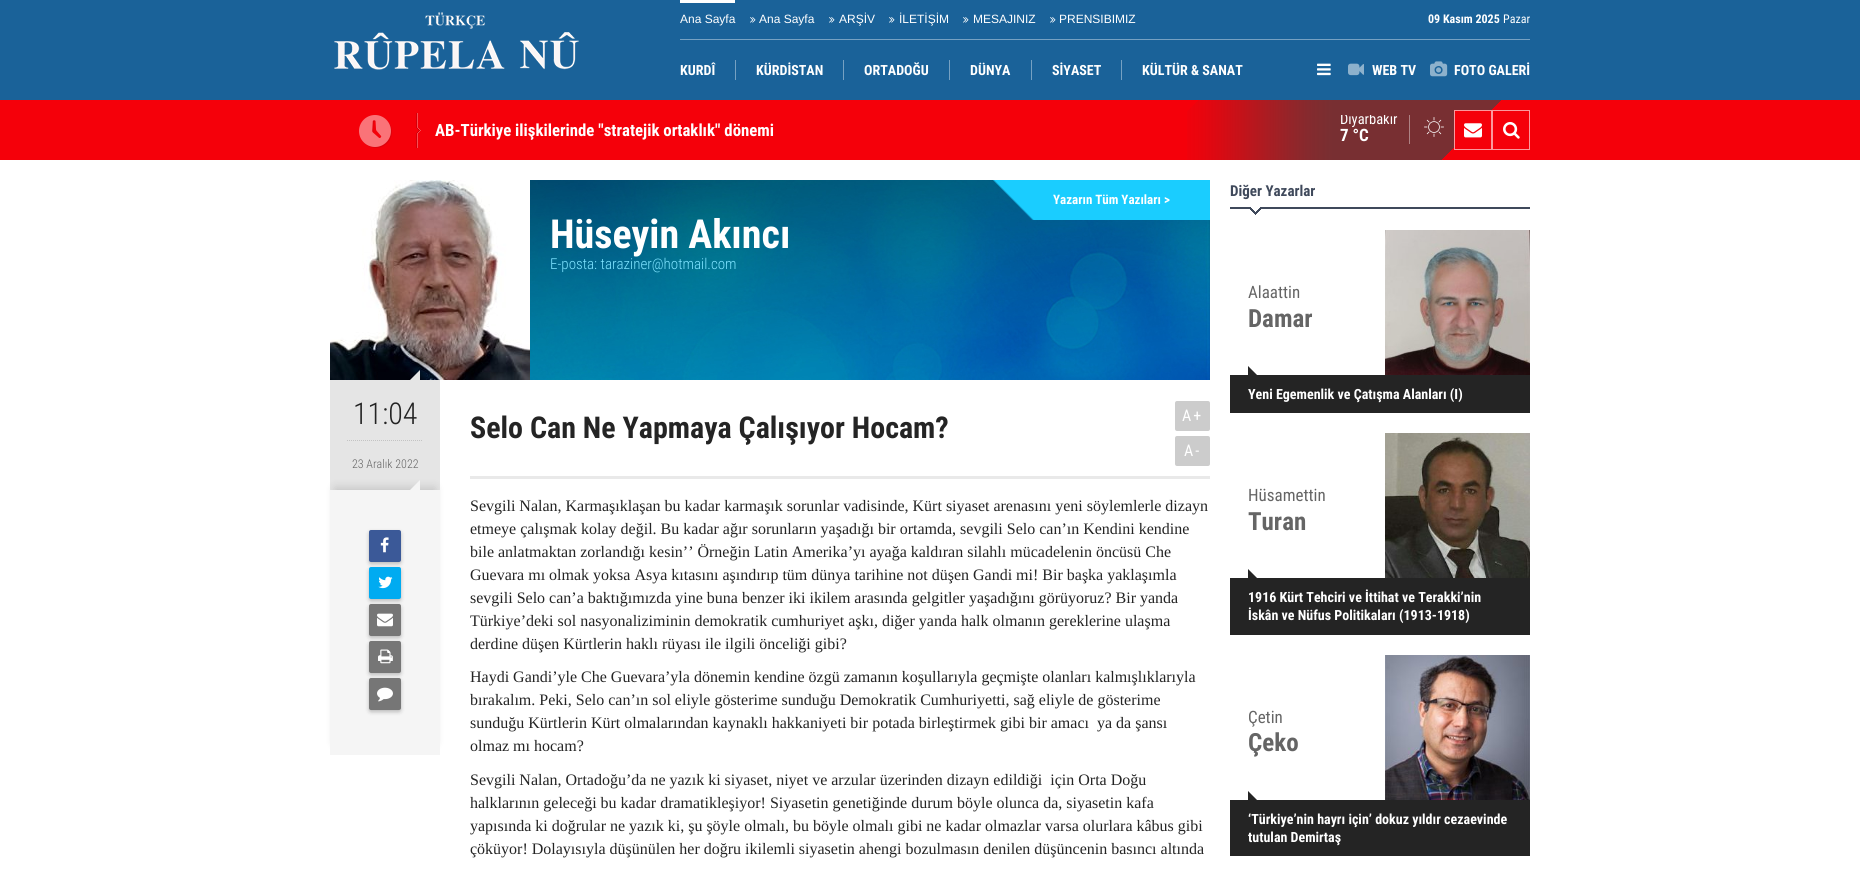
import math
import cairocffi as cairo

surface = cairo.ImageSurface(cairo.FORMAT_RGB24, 1860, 870)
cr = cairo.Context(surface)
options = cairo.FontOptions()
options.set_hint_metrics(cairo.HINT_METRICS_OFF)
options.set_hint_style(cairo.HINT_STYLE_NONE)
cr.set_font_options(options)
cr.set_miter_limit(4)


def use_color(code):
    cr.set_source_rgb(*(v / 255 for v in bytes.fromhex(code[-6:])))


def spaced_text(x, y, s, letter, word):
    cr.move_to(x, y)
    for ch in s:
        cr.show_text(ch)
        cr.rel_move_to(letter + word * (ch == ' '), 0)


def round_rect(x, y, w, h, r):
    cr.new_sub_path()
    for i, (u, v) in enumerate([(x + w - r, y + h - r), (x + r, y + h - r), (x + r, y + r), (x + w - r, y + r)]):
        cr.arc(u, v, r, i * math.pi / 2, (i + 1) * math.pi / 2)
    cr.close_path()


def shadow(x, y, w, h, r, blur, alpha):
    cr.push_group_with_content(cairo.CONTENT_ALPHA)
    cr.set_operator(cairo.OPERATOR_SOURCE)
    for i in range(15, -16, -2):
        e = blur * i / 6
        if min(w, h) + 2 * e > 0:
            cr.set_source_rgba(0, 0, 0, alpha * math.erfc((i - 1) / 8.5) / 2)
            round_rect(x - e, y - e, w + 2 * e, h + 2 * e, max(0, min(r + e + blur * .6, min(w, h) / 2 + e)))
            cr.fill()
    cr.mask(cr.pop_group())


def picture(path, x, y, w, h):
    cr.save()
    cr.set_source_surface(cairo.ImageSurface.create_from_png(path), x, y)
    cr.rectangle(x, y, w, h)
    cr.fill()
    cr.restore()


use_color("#ffffff")
cr.paint()
use_color("#1a6299")
cr.rectangle(0, 0, 1860, 100)
cr.fill()
picture("img1.png", 334, 12, 245, 58)
use_color("#76a1c2")
cr.rectangle(680, 39, 850, 1)
cr.fill()
use_color("#ffffff")
cr.rectangle(680, 0, 55, 3)
cr.fill()
cr.select_font_face("Liberation Sans")
cr.set_font_size(12)
cr.move_to(680, 23)
cr.show_text("Ana Sayfa")
picture("img2.png", 750, 17, 6, 6)
cr.move_to(759, 23)
cr.show_text("Ana Sayfa")
picture("img2.png", 829, 17, 6, 6)
cr.move_to(839, 23)
cr.show_text("ARŞİV")
picture("img2.png", 889, 17, 6, 6)
cr.move_to(899, 23)
cr.show_text("İLETİŞİM")
picture("img2.png", 963, 17, 6, 6)
cr.move_to(973, 23)
cr.show_text("MESAJINIZ")
picture("img2.png", 1050, 17, 6, 6)
cr.move_to(1059, 23)
cr.show_text("PRENSIBIMIZ")
cr.select_font_face("Roboto Condensed", cairo.FONT_SLANT_NORMAL, cairo.FONT_WEIGHT_BOLD)
cr.move_to(1428, 23)
cr.show_text("09 Kasım 2025")
cr.select_font_face("Roboto Condensed")
cr.move_to(1503, 23)
cr.show_text("Pazar")
cr.select_font_face("Roboto Condensed", cairo.FONT_SLANT_NORMAL, cairo.FONT_WEIGHT_BOLD)
cr.set_font_size(14)
cr.move_to(680, 75)
cr.show_text("KURDÎ")
use_color("#76a1c2")
cr.rectangle(735, 60, 1, 20)
cr.fill()
use_color("#ffffff")
cr.move_to(756, 75)
cr.show_text("KÜRDİSTAN")
use_color("#76a1c2")
cr.rectangle(843, 60, 1, 20)
cr.fill()
use_color("#ffffff")
cr.move_to(864, 75)
cr.show_text("ORTADOĞU")
use_color("#76a1c2")
cr.rectangle(949, 60, 1, 20)
cr.fill()
use_color("#ffffff")
cr.move_to(970, 75)
cr.show_text("DÜNYA")
use_color("#76a1c2")
cr.rectangle(1031, 60, 1, 20)
cr.fill()
use_color("#ffffff")
cr.move_to(1052, 75)
cr.show_text("SİYASET")
use_color("#76a1c2")
cr.rectangle(1121, 60, 1, 20)
cr.fill()
use_color("#ffffff")
cr.move_to(1142, 75)
cr.show_text("KÜLTÜR & SANAT")
picture("img3.png", 1317, 63, 14, 13)
picture("img4.png", 1348, 63, 16, 13)
cr.move_to(1372, 75)
cr.show_text("WEB TV")
picture("img5.png", 1430, 61, 18, 16)
cr.move_to(1454, 75)
cr.show_text("FOTO GALERİ")
use_color("#f5000a")
cr.rectangle(0, 100, 1860, 60)
cr.fill()
picture("img6.png", 1187, 100, 314, 60)
picture("img7.png", 359, 113, 62, 35)
cr.set_font_size(16.8)
use_color("#ffffff")
cr.move_to(435, 136)
cr.show_text("AB-Türkiye ilişkilerinde \"stratejik ortaklık\" dönemi")
use_color("#ae8284")
cr.rectangle(1409, 115, 1, 29)
cr.fill()
cr.save()
cr.rectangle(1340, 115, 70, 29)
cr.clip()
cr.select_font_face("Roboto Condensed")
cr.set_font_size(14.5)
use_color("#ffffff")
cr.move_to(1340, 124)
cr.show_text("Diyarbakır")
cr.restore()
cr.set_font_size(17)
use_color("#ffffff")
cr.move_to(1340, 141)
cr.show_text("7 °C")
picture("img8.png", 1424, 117, 20, 20)
use_color("#f5000a")
cr.rectangle(1455, 111, 35, 35)
cr.fill()
cr.rectangle(1454.5, 110.5, 37, 39)
use_color("#fb999d")
cr.set_line_width(1)
cr.stroke()
picture("img9.png", 1464, 123, 18, 15)
cr.rectangle(1492.5, 110.5, 37, 39)
cr.stroke()
picture("img10.png", 1503, 122, 17, 17)
picture("img11.png", 530, 180, 680, 200)
picture("img12.png", 330, 180, 200, 200)
cr.set_font_size(13)
use_color("#ffffff")
cr.move_to(1053, 204)
cr.show_text("Yazarın Tüm Yazıları >")
cr.set_font_size(40)
cr.move_to(550, 248)
cr.show_text("Hüseyin Akıncı")
cr.select_font_face("Roboto Condensed Light")
cr.set_font_size(15)
use_color("#7ee3ff")
cr.move_to(550, 269)
cr.show_text("E-posta: taraziner@hotmail.com")
use_color("#e5e5e5")
cr.rectangle(330, 380, 110, 110)
cr.fill()
cr.new_path()
cr.move_to(420, 380)
cr.line_to(410, 380)
cr.line_to(420, 370)
cr.close_path()
cr.fill()
cr.set_font_size(30)
use_color("#242424")
cr.move_to(353, 424)
cr.show_text("11:04")
cr.new_path()
cr.move_to(347, 440.5)
cr.line_to(423, 440.5)
use_color("#c3c3c3")
cr.set_dash([1, 1])
cr.stroke()
cr.set_font_size(12)
use_color("#656565")
cr.move_to(352, 468)
cr.show_text("23 Aralık 2022")
use_color("#000000")
shadow(335, 488, 100, 255, 0, 5, 0.15)
use_color("#f5f5f5")
cr.rectangle(330, 490, 110, 265)
cr.fill()
cr.new_path()
cr.move_to(420, 490)
cr.line_to(410, 490)
cr.line_to(420, 480)
cr.close_path()
cr.fill()
use_color("#323232")
shadow(369, 532, 32, 32, 2, 2, 0.3)
use_color("#3b5998")
round_rect(369, 530, 32, 32, 2)
cr.fill()
picture("img13.png", 380, 537, 9, 16)
use_color("#323232")
shadow(369, 569, 32, 32, 2, 2, 0.3)
use_color("#00abf1")
round_rect(369, 567, 32, 32, 2)
cr.fill()
picture("img14.png", 378, 576, 15, 13)
use_color("#323232")
shadow(369, 606, 32, 32, 2, 2, 0.3)
use_color("#767676")
round_rect(369, 604, 32, 32, 2)
cr.fill()
picture("img15.png", 377, 613, 16, 14)
use_color("#323232")
shadow(369, 643, 32, 32, 2, 2, 0.3)
use_color("#767676")
round_rect(369, 641, 32, 32, 2)
cr.fill()
picture("img16.png", 378, 649, 15, 15)
use_color("#323232")
shadow(369, 680, 32, 32, 2, 2, 0.3)
use_color("#767676")
round_rect(369, 678, 32, 32, 2)
cr.fill()
picture("img17.png", 377, 687, 16, 15)
use_color("#e9e9e9")
cr.rectangle(470, 476, 740, 3)
cr.fill()
cr.select_font_face("Roboto Condensed", cairo.FONT_SLANT_NORMAL, cairo.FONT_WEIGHT_BOLD)
cr.set_font_size(30)
use_color("#242424")
cr.move_to(470, 438)
cr.show_text("Selo Can Ne Yapmaya Çalışıyor Hocam?")
use_color("#cccccc")
round_rect(1175, 401, 35, 30, 2)
cr.fill()
cr.select_font_face("Roboto Condensed")
cr.set_font_size(16)
use_color("#ffffff")
spaced_text(1182, 421, "A+", 2, 0)
use_color("#cccccc")
round_rect(1175, 436, 35, 30, 2)
cr.fill()
use_color("#ffffff")
spaced_text(1184, 456, "A-", 2, 0)
cr.select_font_face("Liberation Serif")
use_color("#242424")
cr.move_to(470, 511)
cr.show_text("Sevgili Nalan, Karmaşıklaşan bu kadar karmaşık sorunlar vadisinde, Kürt siyaset arenasını yeni söylemlerle dizayn")
cr.move_to(470, 534)
cr.show_text("etmeye çalışmak kolay değil. Bu kadar ağır sorunların yaşadığı bir ortamda, sevgili Selo can’ın Kendini kendine")
cr.move_to(470, 557)
cr.show_text("bile anlatmaktan zorlandığı kesin’’ Örneğin Latin Amerika’yı ayağa kaldıran silahlı mücadelenin öncüsü Che")
cr.move_to(470, 580)
cr.show_text("Guevara mı olmak yoksa Asya kıtasını aşındırıp tüm dünya tarihine not düşen Gandi mi! Bir başka yaklaşımla")
cr.move_to(470, 603)
cr.show_text("sevgili Selo can’a baktığımızda yine buna benzer iki ikilem arasında gelgitler yaşadığını görüyoruz? Bir yanda")
cr.move_to(470, 626)
cr.show_text("Türkiye’deki sol nasyonaliziminin demokratik cumhuriyet aşkı, diğer yanda halk olmanın gereklerine ulaşma")
cr.move_to(470, 649)
cr.show_text("derdine düşen Kürtlerin haklı rüyası ile ilgili önceliği gibi?")
cr.move_to(470, 682)
cr.show_text("Haydi Gandi’yle Che Guevara’yla dönemin kendine özgü zamanın koşullarıyla geçmişte olanları kalmışlıklarıyla")
cr.move_to(470, 705)
cr.show_text("bırakalım. Peki, Selo can’ın sol eliyle gösterime sunduğu Demokratik Cumhuriyetti, sağ eliyle de gösterime")
cr.move_to(470, 728)
cr.show_text("sunduğu Kürtlerin Kürt olmalarından kaynaklı hakkaniyeti bir potada birleştirmek gibi bir amacı  ya da şansı")
cr.move_to(470, 751)
cr.show_text("olmaz mı hocam?")
cr.move_to(470, 785)
cr.show_text("Sevgili Nalan, Ortadoğu’da ne yazık ki siyaset, niyet ve arzular üzerinden dizayn edildiği  için Orta Doğu")
cr.move_to(470, 808)
cr.show_text("halklarının geleceği bu kadar dramatikleşiyor! Siyasetin genetiğinde durum böyle olunca da, siyasetin kafa")
cr.move_to(470, 831)
cr.show_text("yapısında ki doğrular ne yazık ki, şu şöyle olmalı, bu böyle olmalı gibi ne kadar olmazlar varsa olurlara kâbus gibi")
cr.move_to(470, 854)
cr.show_text("çöküyor! Dolayısıyla düşünülen her doğru ikilemli siyasetin ahengi bozulmasın denilen düşüncenin basıncı altında")
picture("img18.png", 1230, 207, 300, 8)
cr.select_font_face("Roboto Condensed", cairo.FONT_SLANT_NORMAL, cairo.FONT_WEIGHT_BOLD)
cr.set_font_size(15)
use_color("#3f495b")
cr.move_to(1230, 196)
cr.show_text("Diğer Yazarlar")
cr.select_font_face("Roboto Condensed")
cr.set_font_size(17)
use_color("#656565")
cr.move_to(1248, 298)
cr.show_text("Alaattin")
cr.select_font_face("Roboto Condensed", cairo.FONT_SLANT_NORMAL, cairo.FONT_WEIGHT_BOLD)
cr.set_font_size(25)
cr.move_to(1248, 327)
cr.show_text("Damar")
picture("img19.png", 1385, 230, 145, 145)
use_color("#242424")
cr.rectangle(1230, 375, 300, 38)
cr.fill()
cr.new_path()
cr.move_to(1248, 375)
cr.line_to(1248, 366)
cr.line_to(1257, 375)
cr.close_path()
cr.fill()
cr.set_font_size(14)
use_color("#ffffff")
cr.move_to(1248, 399)
cr.show_text("Yeni Egemenlik ve Çatışma Alanları (I)")
cr.select_font_face("Roboto Condensed")
cr.set_font_size(17)
use_color("#656565")
cr.move_to(1248, 501)
cr.show_text("Hüsamettin")
cr.select_font_face("Roboto Condensed", cairo.FONT_SLANT_NORMAL, cairo.FONT_WEIGHT_BOLD)
cr.set_font_size(25)
cr.move_to(1248, 530)
cr.show_text("Turan")
picture("img20.png", 1385, 433, 145, 145)
use_color("#242424")
cr.rectangle(1230, 578, 300, 57)
cr.fill()
cr.new_path()
cr.move_to(1248, 578)
cr.line_to(1248, 569)
cr.line_to(1257, 578)
cr.close_path()
cr.fill()
cr.set_font_size(14)
use_color("#ffffff")
cr.move_to(1248, 602)
cr.show_text("1916 Kürt Tehciri ve İttihat ve Terakki’nin")
cr.move_to(1248, 620)
cr.show_text("İskân ve Nüfus Politikaları (1913-1918)")
cr.select_font_face("Roboto Condensed")
cr.set_font_size(17)
use_color("#656565")
cr.move_to(1248, 723)
cr.show_text("Çetin")
cr.select_font_face("Roboto Condensed", cairo.FONT_SLANT_NORMAL, cairo.FONT_WEIGHT_BOLD)
cr.set_font_size(25)
cr.move_to(1248, 751)
cr.show_text("Çeko")
picture("img21.png", 1385, 655, 145, 145)
use_color("#242424")
cr.rectangle(1230, 800, 300, 56)
cr.fill()
cr.new_path()
cr.move_to(1248, 800)
cr.line_to(1248, 791)
cr.line_to(1257, 800)
cr.close_path()
cr.fill()
cr.set_font_size(14)
use_color("#ffffff")
cr.move_to(1248, 824)
cr.show_text("‘Türkiye’nin hayrı için’ dokuz yıldır cezaevinde")
cr.move_to(1248, 842)
cr.show_text("tutulan Demirtaş")
surface.write_to_png("result.png")
